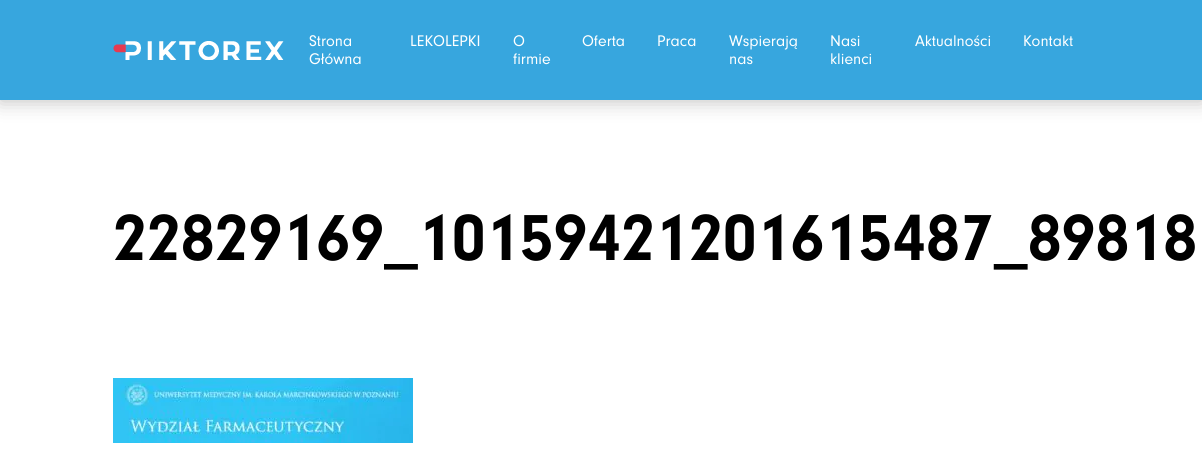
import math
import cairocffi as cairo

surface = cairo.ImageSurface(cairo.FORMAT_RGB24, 1202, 455)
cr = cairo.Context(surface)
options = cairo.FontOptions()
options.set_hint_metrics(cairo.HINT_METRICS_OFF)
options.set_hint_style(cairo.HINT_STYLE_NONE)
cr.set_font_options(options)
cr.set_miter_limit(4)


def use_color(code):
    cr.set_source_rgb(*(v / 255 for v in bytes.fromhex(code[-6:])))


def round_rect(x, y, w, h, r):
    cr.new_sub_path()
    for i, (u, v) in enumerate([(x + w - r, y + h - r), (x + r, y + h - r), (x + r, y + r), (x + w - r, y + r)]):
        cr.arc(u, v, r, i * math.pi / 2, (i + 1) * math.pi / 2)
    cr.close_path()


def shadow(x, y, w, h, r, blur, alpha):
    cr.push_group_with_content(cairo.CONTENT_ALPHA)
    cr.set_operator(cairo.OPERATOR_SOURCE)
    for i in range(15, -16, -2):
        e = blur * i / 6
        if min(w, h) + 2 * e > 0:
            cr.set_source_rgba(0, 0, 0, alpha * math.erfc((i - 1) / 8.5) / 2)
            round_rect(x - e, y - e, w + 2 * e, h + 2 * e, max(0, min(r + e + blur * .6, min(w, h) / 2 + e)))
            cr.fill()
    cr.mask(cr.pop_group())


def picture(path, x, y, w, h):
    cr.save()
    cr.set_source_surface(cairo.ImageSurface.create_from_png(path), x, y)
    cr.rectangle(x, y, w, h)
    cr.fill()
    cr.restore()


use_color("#ffffff")
cr.paint()
use_color("#292623")
shadow(0, 0, 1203, 101, 0, 10, 0.3)
use_color("#37a6de")
cr.rectangle(0, 0, 1202, 100)
cr.fill()
picture("img1.png", 113, 41, 171, 19)
cr.select_font_face("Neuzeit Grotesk")
cr.set_font_size(16)
use_color("#ffffff")
cr.move_to(309, 46)
cr.show_text("Strona")
cr.move_to(309, 64)
cr.show_text("Główna")
cr.move_to(410, 46)
cr.show_text("LEKOLEPKI")
cr.move_to(513, 46)
cr.show_text("O")
cr.move_to(513, 64)
cr.show_text("firmie")
cr.move_to(582, 46)
cr.show_text("Oferta")
cr.move_to(657, 46)
cr.show_text("Praca")
cr.move_to(729, 46)
cr.show_text("Wspierają")
cr.move_to(729, 64)
cr.show_text("nas")
cr.move_to(830, 46)
cr.show_text("Nasi")
cr.move_to(830, 64)
cr.show_text("klienci")
cr.move_to(915, 46)
cr.show_text("Aktualności")
cr.move_to(1023, 46)
cr.show_text("Kontakt")
cr.select_font_face("Neuzeit Grotesk", cairo.FONT_SLANT_NORMAL, cairo.FONT_WEIGHT_BOLD)
cr.set_font_size(67.75)
use_color("#000000")
cr.move_to(113, 260)
cr.show_text("22829169_10159421201615487_89818")
picture("img2.png", 113, 378, 300, 65)
surface.write_to_png("result.png")
